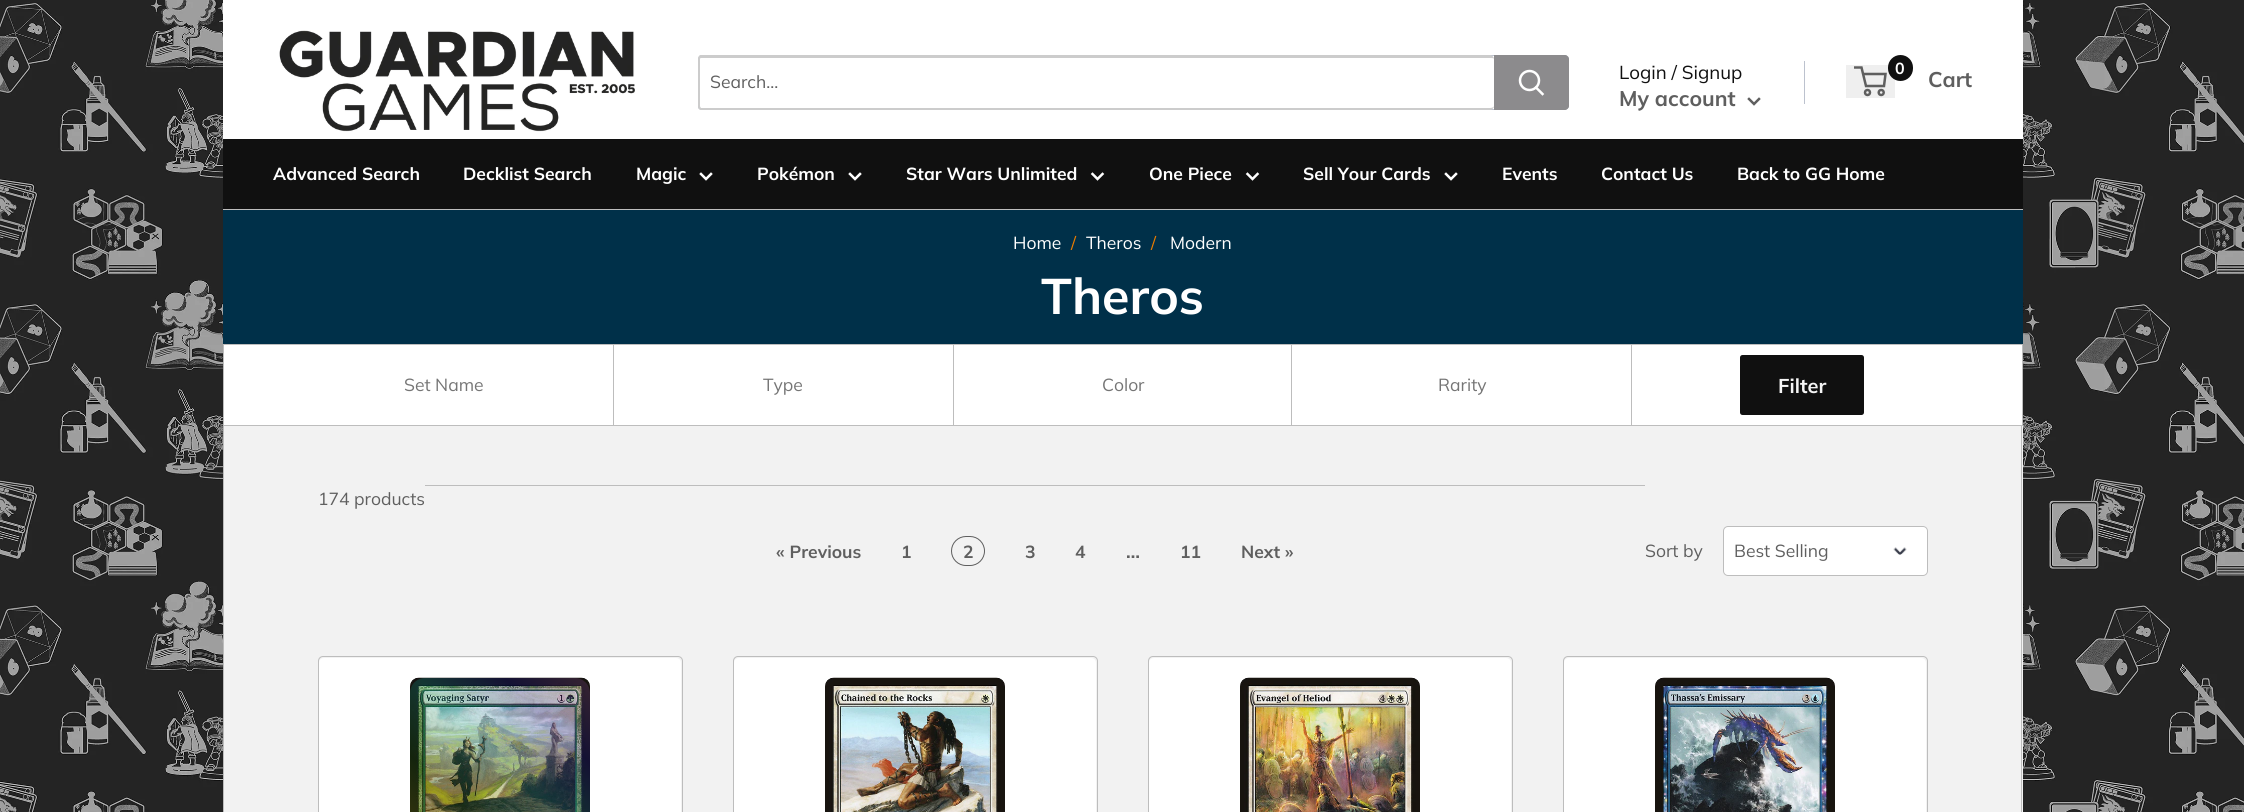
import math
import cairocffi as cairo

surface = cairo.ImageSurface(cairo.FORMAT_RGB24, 2244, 812)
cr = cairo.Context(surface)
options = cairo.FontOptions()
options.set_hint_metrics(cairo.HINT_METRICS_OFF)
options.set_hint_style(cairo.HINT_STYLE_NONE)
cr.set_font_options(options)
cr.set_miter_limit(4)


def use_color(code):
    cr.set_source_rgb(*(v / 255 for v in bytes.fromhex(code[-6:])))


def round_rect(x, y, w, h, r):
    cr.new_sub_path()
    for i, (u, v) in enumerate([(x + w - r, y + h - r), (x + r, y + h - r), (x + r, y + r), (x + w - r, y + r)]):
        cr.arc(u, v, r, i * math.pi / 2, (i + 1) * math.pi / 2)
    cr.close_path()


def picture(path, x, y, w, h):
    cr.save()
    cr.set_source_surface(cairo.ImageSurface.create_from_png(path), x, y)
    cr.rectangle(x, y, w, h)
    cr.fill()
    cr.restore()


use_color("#ffffff")
cr.paint()
picture("img1.png", 0, 0, 2244, 812)
use_color("#ffffff")
cr.rectangle(223, 0, 1800, 425)
cr.fill()
picture("img2.png", 279, 30, 356, 102)
use_color("#bcc2ce")
cr.new_path()
cr.move_to(699, 109)
cr.line_to(702, 110)
cr.line_to(1565, 110)
cr.line_to(1567, 109)
cr.line_to(1569, 107)
cr.line_to(1569, 59)
cr.line_to(1568, 56)
cr.line_to(1568, 97)
cr.curve_to(1568, 100, 1570, 109, 1564, 109)
cr.close_path()
cr.fill()
cr.new_path()
cr.move_to(702, 56)
cr.line_to(1566, 56)
cr.line_to(1568, 57)
cr.curve_to(1568, 56, 1566, 55, 1565, 55)
cr.line_to(702, 55)
cr.curve_to(700, 55, 698, 57, 698, 59)
cr.line_to(698, 106)
cr.curve_to(698, 107, 698, 108, 699, 109)
cr.line_to(699, 68)
cr.curve_to(699, 67, 697, 56, 702, 56)
cr.close_path()
cr.fill()
use_color("#cccccc")
cr.set_fill_rule(cairo.FILL_RULE_EVEN_ODD)
cr.new_path()
cr.move_to(701, 55)
cr.line_to(1490, 55)
cr.curve_to(1492, 55, 1494, 57, 1494, 59)
cr.line_to(1494, 106)
cr.curve_to(1494, 108, 1492, 110, 1490, 110)
cr.line_to(701, 110)
cr.curve_to(699, 110, 698, 108, 698, 106)
cr.line_to(698, 59)
cr.curve_to(698, 57, 699, 55, 701, 55)
cr.close_path()
cr.move_to(701, 58)
cr.line_to(1490, 58)
cr.curve_to(1492, 58, 1494, 58, 1494, 59)
cr.line_to(1494, 106)
cr.curve_to(1494, 107, 1492, 108, 1490, 108)
cr.line_to(701, 108)
cr.curve_to(701, 108, 700, 107, 700, 106)
cr.line_to(700, 59)
cr.curve_to(700, 58, 701, 58, 701, 58)
cr.close_path()
cr.fill()
cr.select_font_face("Muli")
cr.set_font_size(17.5)
use_color("#5f5f5f")
cr.move_to(710, 88)
cr.show_text("Search...")
use_color("#8c8b8d")
cr.new_path()
cr.move_to(1494, 55)
cr.line_to(1565, 55)
cr.curve_to(1567, 55, 1569, 57, 1569, 59)
cr.line_to(1569, 106)
cr.curve_to(1569, 108, 1567, 110, 1565, 110)
cr.line_to(1494, 110)
cr.close_path()
cr.fill()
cr.new_path()
cr.move_to(1542.5, 94)
cr.line_to(1536, 87.5)
use_color("#ffffff")
cr.set_line_width(2.5)
cr.set_line_cap(cairo.LINE_CAP_SQUARE)
cr.stroke()
cr.arc(1529.5, 80.5, 9.5, 0, 2 * math.pi)
cr.set_line_cap(cairo.LINE_CAP_BUTT)
cr.stroke()
cr.set_font_size(18.75)
use_color("#101010")
cr.move_to(1619, 79)
cr.show_text("Login / Signup")
use_color("#bcc2ce")
cr.rectangle(1804, 61, 1, 43)
cr.fill()
cr.select_font_face("Muli", cairo.FONT_SLANT_NORMAL, cairo.FONT_WEIGHT_BOLD)
cr.set_font_size(21.25)
use_color("#5f5f5f")
cr.move_to(1619, 106)
cr.show_text("My account")
cr.new_path()
cr.move_to(1759, 99)
cr.line_to(1754, 104)
cr.line_to(1749, 99)
cr.set_line_cap(cairo.LINE_CAP_SQUARE)
cr.stroke()
use_color("#efefef")
cr.rectangle(1846, 65, 49, 33)
cr.fill()
cr.arc(1867.5, 92.5, 2.5, 0, 2 * math.pi)
use_color("#5f5f5f")
cr.set_line_cap(cairo.LINE_CAP_BUTT)
cr.stroke()
cr.arc(1881.2, 92.5, 2.5, 0, 2 * math.pi)
cr.stroke()
cr.new_path()
cr.move_to(1863, 74)
cr.line_to(1885.5, 74)
cr.line_to(1884, 86)
cr.line_to(1866, 86)
cr.line_to(1861.5, 67.5)
cr.line_to(1854, 67.5)
cr.stroke()
use_color("#101010")
round_rect(1888, 55, 25, 26, 12.5)
cr.fill()
cr.set_font_size(16)
use_color("#ffffff")
cr.move_to(1895, 74)
cr.show_text("0")
cr.set_font_size(21.25)
use_color("#5f5f5f")
cr.move_to(1928, 87)
cr.show_text("Cart")
use_color("#101010")
cr.rectangle(223, 139, 1800, 70)
cr.fill()
use_color("#bdbdbd")
cr.rectangle(223, 209, 1800, 1)
cr.fill()
cr.set_font_size(17.5)
use_color("#ffffff")
cr.move_to(273, 180)
cr.show_text("Advanced Search")
cr.move_to(463, 180)
cr.show_text("Decklist Search")
cr.move_to(636, 180)
cr.show_text("Magic")
cr.new_path()
cr.move_to(711, 174)
cr.line_to(706, 179)
cr.line_to(701, 174)
cr.set_line_cap(cairo.LINE_CAP_SQUARE)
cr.stroke()
cr.move_to(757, 180)
cr.show_text("Pokémon")
cr.new_path()
cr.move_to(860, 174)
cr.line_to(855, 179)
cr.line_to(850, 174)
cr.stroke()
cr.move_to(906, 180)
cr.show_text("Star Wars Unlimited")
cr.new_path()
cr.move_to(1102.5, 174)
cr.line_to(1097.5, 179)
cr.line_to(1092.5, 174)
cr.stroke()
cr.move_to(1149, 180)
cr.show_text("One Piece")
cr.new_path()
cr.move_to(1257.5, 174)
cr.line_to(1252.5, 179)
cr.line_to(1247.5, 174)
cr.stroke()
cr.move_to(1303, 180)
cr.show_text("Sell Your Cards")
cr.new_path()
cr.move_to(1456, 174)
cr.line_to(1451, 179)
cr.line_to(1446, 174)
cr.stroke()
cr.move_to(1502, 180)
cr.show_text("Events")
cr.move_to(1601, 180)
cr.show_text("Contact Us")
cr.move_to(1737, 180)
cr.show_text("Back to GG Home")
use_color("#003049")
cr.rectangle(223, 210, 1800, 134)
cr.fill()
cr.select_font_face("Muli")
use_color("#ffffff")
cr.move_to(1013, 249)
cr.show_text("Home")
use_color("#eb7c00")
cr.move_to(1071, 249)
cr.show_text("/")
use_color("#ffffff")
cr.move_to(1086, 249)
cr.show_text("Theros")
use_color("#eb7c00")
cr.move_to(1151, 249)
cr.show_text("/")
use_color("#ffffff")
cr.move_to(1170, 249)
cr.show_text("Modern")
cr.select_font_face("Muli", cairo.FONT_SLANT_NORMAL, cairo.FONT_WEIGHT_BOLD)
cr.set_font_size(50)
cr.move_to(1041, 314)
cr.show_text("Theros")
cr.rectangle(223.5, 344.5, 1799, 81)
use_color("#bdbdbd")
cr.set_line_width(1)
cr.set_line_cap(cairo.LINE_CAP_BUTT)
cr.stroke()
cr.rectangle(613, 345, 1, 80)
cr.fill()
cr.select_font_face("Muli")
cr.set_font_size(17.5)
use_color("#757575")
cr.move_to(404, 391)
cr.show_text("Set Name")
use_color("#bdbdbd")
cr.rectangle(953, 345, 1, 80)
cr.fill()
use_color("#757575")
cr.move_to(763, 391)
cr.show_text("Type")
use_color("#bdbdbd")
cr.rectangle(1291, 345, 1, 80)
cr.fill()
use_color("#757575")
cr.move_to(1102, 391)
cr.show_text("Color")
use_color("#bdbdbd")
cr.rectangle(1631, 345, 1, 80)
cr.fill()
use_color("#757575")
cr.move_to(1438, 391)
cr.show_text("Rarity")
use_color("#101010")
round_rect(1740, 355, 124, 60, 2.5)
cr.fill()
cr.select_font_face("Muli", cairo.FONT_SLANT_NORMAL, cairo.FONT_WEIGHT_BOLD)
cr.set_font_size(20)
use_color("#f5f5f5")
cr.move_to(1778, 393)
cr.show_text("Filter")
use_color("#f2f2f2")
cr.rectangle(224, 426, 1799, 386)
cr.fill()
use_color("#bdbdbd")
cr.rectangle(2021, 426, 1, 386)
cr.fill()
cr.rectangle(223, 426, 1, 386)
cr.fill()
cr.select_font_face("Muli")
cr.set_font_size(17.5)
use_color("#5f5f5f")
cr.move_to(318, 505)
cr.show_text("174 products")
use_color("#bdbdbd")
cr.rectangle(425, 485, 1220, 1)
cr.fill()
cr.select_font_face("Muli", cairo.FONT_SLANT_NORMAL, cairo.FONT_WEIGHT_BOLD)
use_color("#5f5f5f")
cr.move_to(776, 558)
cr.show_text("« Previous")
cr.move_to(901, 558)
cr.show_text("1")
round_rect(951.5, 536.5, 33, 29, 14.5)
cr.stroke()
cr.move_to(963, 558)
cr.show_text("2")
cr.move_to(1025, 558)
cr.show_text("3")
cr.move_to(1075, 558)
cr.show_text("4")
cr.set_font_size(18.75)
cr.move_to(1126, 558)
cr.show_text("…")
cr.set_font_size(17.5)
cr.move_to(1180, 558)
cr.show_text("11")
cr.move_to(1241, 558)
cr.show_text("Next »")
cr.select_font_face("Muli")
cr.move_to(1645, 557)
cr.show_text("Sort by")
use_color("#ffffff")
round_rect(1723, 526, 205, 50, 5)
cr.fill()
picture("img3.png", 1893, 547, 14, 8)
round_rect(1723.5, 526.5, 204, 49, 4.5)
use_color("#bdbdbd")
cr.stroke()
use_color("#5f5f5f")
cr.move_to(1734, 557)
cr.show_text("Best Selling")
round_rect(318.5, 656.5, 364, 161, 4.5)
use_color("#bdbdbd")
cr.stroke()
use_color("#ffffff")
cr.new_path()
cr.move_to(324, 658)
cr.line_to(676, 658)
cr.curve_to(679, 658, 681, 660, 681, 663)
cr.line_to(681, 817)
cr.line_to(319, 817)
cr.line_to(319, 663)
cr.curve_to(319, 660, 321, 658, 324, 658)
cr.close_path()
cr.fill()
picture("img4.png", 410, 677, 180, 135)
gradient = cairo.LinearGradient(393, 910, 608, 695)
gradient.add_color_stop_rgba(0, 1, 0.647, 0, 0.15)
gradient.add_color_stop_rgba(0.2, 1, 1, 0, 0.15)
gradient.add_color_stop_rgba(0.4, 0, 0.502, 0, 0.15)
gradient.add_color_stop_rgba(0.6, 0, 1, 1, 0.15)
gradient.add_color_stop_rgba(0.8, 0, 0, 1, 0.15)
gradient.add_color_stop_rgba(1, 0.933, 0.51, 0.933, 0.15)
cr.set_source(gradient)
round_rect(410, 678, 180, 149, 15)
cr.fill()
round_rect(733.5, 656.5, 364, 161, 4.5)
use_color("#bdbdbd")
cr.stroke()
use_color("#ffffff")
cr.new_path()
cr.move_to(739, 658)
cr.line_to(1091, 658)
cr.curve_to(1094, 658, 1096, 660, 1096, 663)
cr.line_to(1096, 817)
cr.line_to(734, 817)
cr.line_to(734, 663)
cr.curve_to(734, 660, 736, 658, 739, 658)
cr.close_path()
cr.fill()
picture("img5.png", 825, 677, 180, 135)
round_rect(1148.5, 656.5, 364, 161, 4.5)
use_color("#bdbdbd")
cr.stroke()
use_color("#ffffff")
cr.new_path()
cr.move_to(1154, 658)
cr.line_to(1506, 658)
cr.curve_to(1509, 658, 1511, 660, 1511, 663)
cr.line_to(1511, 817)
cr.line_to(1149, 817)
cr.line_to(1149, 663)
cr.curve_to(1149, 660, 1151, 658, 1154, 658)
cr.close_path()
cr.fill()
picture("img6.png", 1240, 677, 180, 135)
round_rect(1563.5, 656.5, 364, 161, 4.5)
use_color("#bdbdbd")
cr.stroke()
use_color("#ffffff")
cr.new_path()
cr.move_to(1569, 658)
cr.line_to(1921, 658)
cr.curve_to(1924, 658, 1926, 660, 1926, 663)
cr.line_to(1926, 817)
cr.line_to(1564, 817)
cr.line_to(1564, 663)
cr.curve_to(1564, 660, 1566, 658, 1569, 658)
cr.close_path()
cr.fill()
picture("img7.png", 1655, 677, 180, 135)
surface.write_to_png("result.png")
